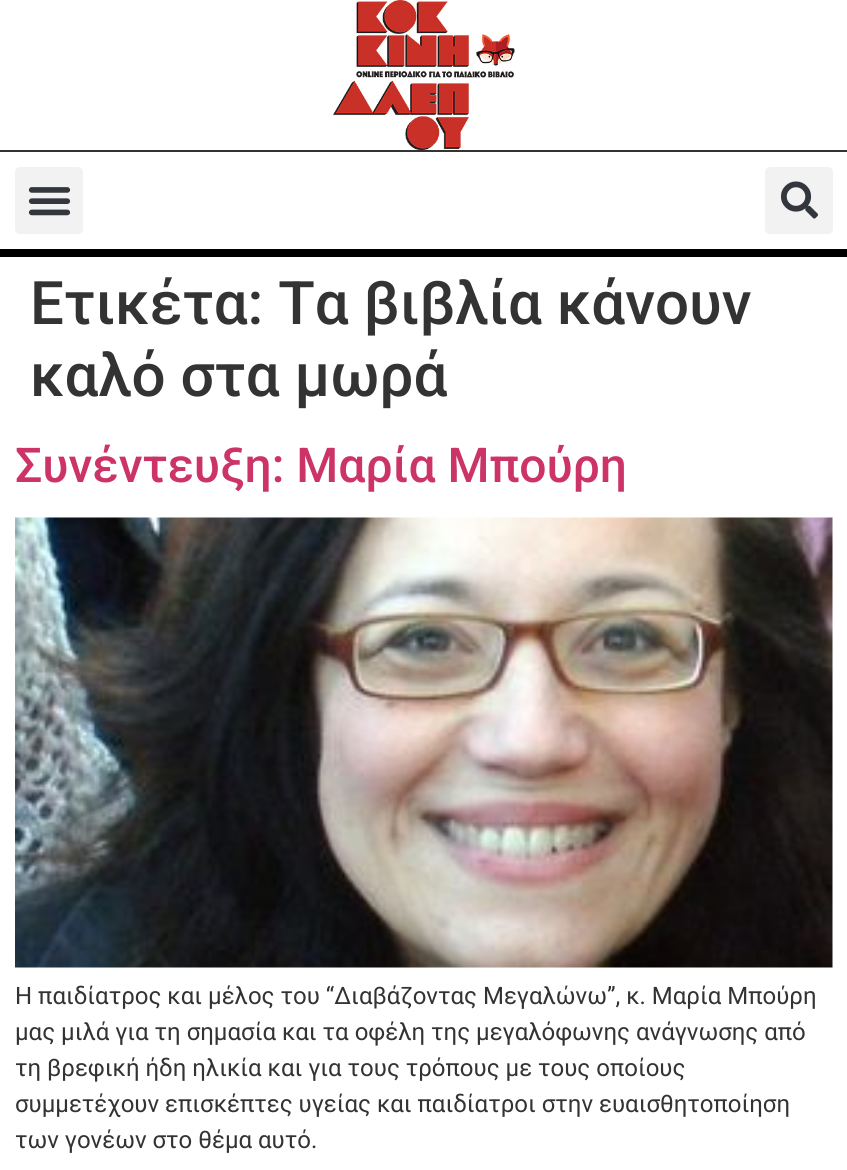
import math
import cairocffi as cairo

surface = cairo.ImageSurface(cairo.FORMAT_RGB24, 847, 1170)
cr = cairo.Context(surface)
options = cairo.FontOptions()
options.set_hint_metrics(cairo.HINT_METRICS_OFF)
options.set_hint_style(cairo.HINT_STYLE_NONE)
cr.set_font_options(options)
cr.set_miter_limit(4)


def use_color(code):
    cr.set_source_rgb(*(v / 255 for v in bytes.fromhex(code[-6:])))


def round_rect(x, y, w, h, r):
    cr.new_sub_path()
    for i, (u, v) in enumerate([(x + w - r, y + h - r), (x + r, y + h - r), (x + r, y + r), (x + w - r, y + r)]):
        cr.arc(u, v, r, i * math.pi / 2, (i + 1) * math.pi / 2)
    cr.close_path()


def picture(path, x, y, w, h):
    cr.save()
    cr.set_source_surface(cairo.ImageSurface.create_from_png(path), x, y)
    cr.rectangle(x, y, w, h)
    cr.fill()
    cr.restore()


use_color("#ffffff")
cr.paint()
use_color("#333333")
cr.rectangle(0, 150, 847, 2)
cr.fill()
picture("img1.png", 333, 0, 182, 150)
use_color("#000000")
cr.rectangle(0, 249, 847, 8)
cr.fill()
use_color("#f2f2f2")
round_rect(15, 167, 68, 67, 5)
cr.fill()
picture("img2.png", 28, 187, 43, 29)
round_rect(765, 167, 68, 67, 5)
cr.fill()
picture("img3.png", 780, 181, 38, 38)
cr.select_font_face("Roboto Medium")
cr.set_font_size(60)
use_color("#333333")
cr.move_to(30, 324)
cr.show_text("Ετικέτα: Τα βιβλία κάνουν")
cr.move_to(30, 396)
cr.show_text("καλό στα μωρά")
cr.set_font_size(48)
use_color("#cc3366")
cr.move_to(15, 482)
cr.show_text("Συνέντευξη: Μαρία Μπούρη")
picture("img4.png", 15, 517, 818, 451)
cr.select_font_face("Roboto")
cr.set_font_size(24)
use_color("#333333")
cr.move_to(15, 1004)
cr.show_text("H παιδίατρος και μέλος του “Διαβάζοντας Μεγαλώνω”, κ. Μαρία Μπούρη")
cr.move_to(15, 1040)
cr.show_text("μας μιλά για τη σημασία και τα οφέλη της μεγαλόφωνης ανάγνωσης από")
cr.move_to(15, 1076)
cr.show_text("τη βρεφική ήδη ηλικία και για τους τρόπους με τους οποίους")
cr.move_to(15, 1112)
cr.show_text("συμμετέχουν επισκέπτες υγείας και παιδίατροι στην ευαισθητοποίηση")
cr.move_to(15, 1148)
cr.show_text("των γονέων στο θέμα αυτό.")
surface.write_to_png("result.png")
